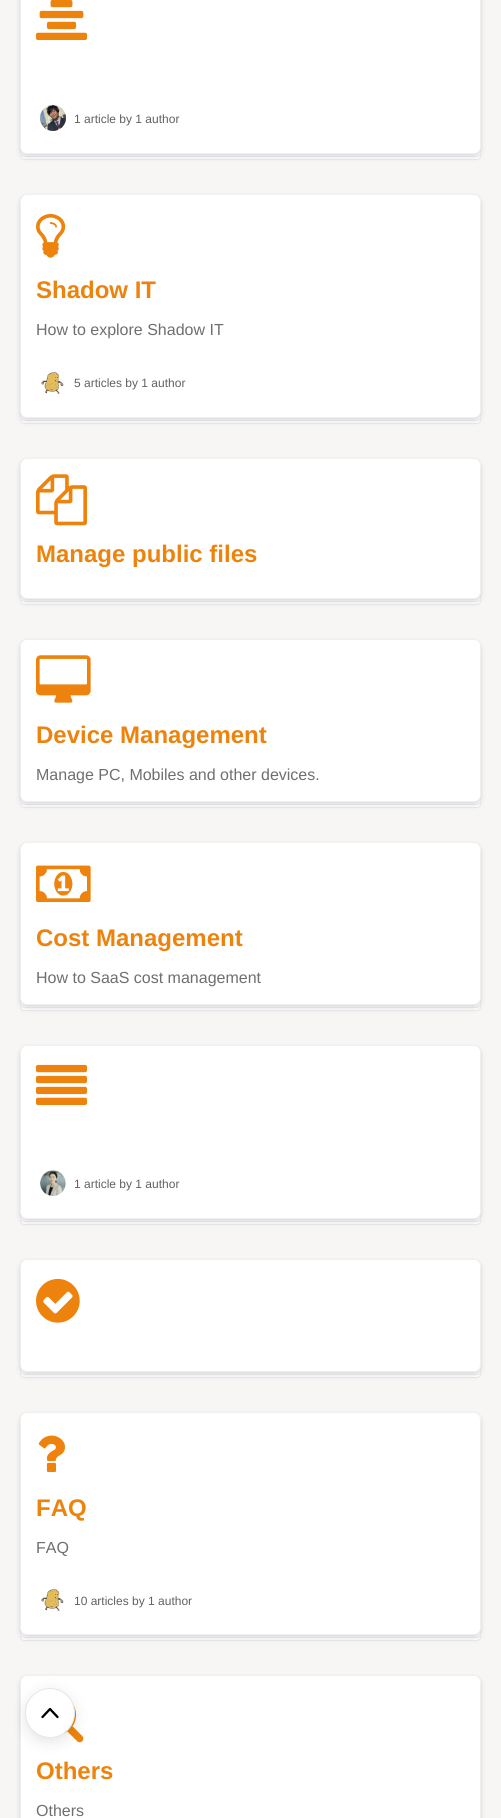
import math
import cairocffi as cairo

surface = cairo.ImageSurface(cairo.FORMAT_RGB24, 501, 1818)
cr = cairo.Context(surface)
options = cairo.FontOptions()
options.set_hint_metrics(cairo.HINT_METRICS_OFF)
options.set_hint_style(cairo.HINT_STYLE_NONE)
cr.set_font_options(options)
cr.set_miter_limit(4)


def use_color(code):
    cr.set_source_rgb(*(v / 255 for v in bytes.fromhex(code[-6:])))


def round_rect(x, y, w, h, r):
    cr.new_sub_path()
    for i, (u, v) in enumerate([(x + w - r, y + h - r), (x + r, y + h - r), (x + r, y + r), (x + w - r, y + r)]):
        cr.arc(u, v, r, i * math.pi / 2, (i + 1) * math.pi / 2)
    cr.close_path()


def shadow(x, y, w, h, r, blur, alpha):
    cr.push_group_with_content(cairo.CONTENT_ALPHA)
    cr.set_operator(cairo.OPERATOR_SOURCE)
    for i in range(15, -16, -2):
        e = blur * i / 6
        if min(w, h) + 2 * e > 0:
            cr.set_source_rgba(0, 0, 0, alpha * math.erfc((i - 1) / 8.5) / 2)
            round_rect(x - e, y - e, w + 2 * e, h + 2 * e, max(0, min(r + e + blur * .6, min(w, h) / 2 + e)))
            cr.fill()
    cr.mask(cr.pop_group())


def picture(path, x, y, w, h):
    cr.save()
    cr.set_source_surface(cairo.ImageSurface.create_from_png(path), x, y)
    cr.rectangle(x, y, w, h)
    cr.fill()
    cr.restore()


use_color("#f7f6f5")
cr.paint()
use_color("#ffffff")
round_rect(20.5, -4.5, 460, 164, 3.5)
cr.fill_preserve()
use_color("#eaeaea")
cr.set_line_width(1)
cr.stroke()
use_color("#ffffff")
round_rect(20.5, -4.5, 460, 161, 3.5)
cr.fill_preserve()
use_color("#f0f0f0")
cr.stroke()
use_color("#000000")
shadow(20, -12, 461, 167, 7, 1.5, 0.08)
use_color("#32325d")
shadow(20, -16, 461, 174, 7, 3, 0.11)
use_color("#ffffff")
round_rect(20.5, -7.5, 460, 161, 6.5)
cr.fill_preserve()
use_color("#f0f0f0")
cr.stroke()
picture("img1.png", 36, 0, 51, 40)
picture("img2.png", 40, 105, 26, 26)
cr.select_font_face("Liberation Sans")
cr.set_font_size(12)
use_color("#616161")
cr.move_to(74, 123)
cr.show_text("1 article by 1 author")
use_color("#ffffff")
round_rect(20.5, 200.5, 460, 223, 3.5)
cr.fill_preserve()
use_color("#eaeaea")
cr.stroke()
use_color("#ffffff")
round_rect(20.5, 197.5, 460, 223, 3.5)
cr.fill_preserve()
use_color("#f0f0f0")
cr.stroke()
use_color("#000000")
shadow(20, 195, 461, 224, 7, 1.5, 0.08)
use_color("#32325d")
shadow(20, 198, 461, 224, 7, 3, 0.11)
use_color("#ffffff")
round_rect(20.5, 194.5, 460, 223, 6.5)
cr.fill_preserve()
use_color("#f0f0f0")
cr.stroke()
picture("img3.png", 36, 213, 30, 45)
cr.select_font_face("Liberation Sans", cairo.FONT_SLANT_NORMAL, cairo.FONT_WEIGHT_BOLD)
cr.set_font_size(24)
use_color("#ed830d")
cr.move_to(36, 298)
cr.show_text("Shadow IT")
cr.select_font_face("Liberation Sans")
cr.set_font_size(16)
use_color("#6f6f6f")
cr.move_to(36, 335)
cr.show_text("How to explore Shadow IT")
picture("img4.png", 41, 371, 23, 23)
cr.set_font_size(12)
use_color("#616161")
cr.move_to(74, 387)
cr.show_text("5 articles by 1 author")
use_color("#ffffff")
round_rect(20.5, 464.5, 460, 140, 3.5)
cr.fill_preserve()
use_color("#eaeaea")
cr.stroke()
use_color("#ffffff")
round_rect(20.5, 461.5, 460, 140, 3.5)
cr.fill_preserve()
use_color("#f0f0f0")
cr.stroke()
use_color("#000000")
shadow(20, 459, 461, 141, 7, 1.5, 0.08)
use_color("#32325d")
shadow(20, 462, 461, 141, 7, 3, 0.11)
use_color("#ffffff")
round_rect(20.5, 458.5, 460, 140, 6.5)
cr.fill_preserve()
use_color("#f0f0f0")
cr.stroke()
picture("img5.png", 36, 474, 51, 52)
cr.select_font_face("Liberation Sans", cairo.FONT_SLANT_NORMAL, cairo.FONT_WEIGHT_BOLD)
cr.set_font_size(24)
use_color("#ed830d")
cr.move_to(36, 562)
cr.show_text("Manage public files")
use_color("#ffffff")
round_rect(20.5, 645.5, 460, 162, 3.5)
cr.fill_preserve()
use_color("#eaeaea")
cr.stroke()
use_color("#ffffff")
round_rect(20.5, 642.5, 460, 162, 3.5)
cr.fill_preserve()
use_color("#f0f0f0")
cr.stroke()
use_color("#000000")
shadow(20, 640, 461, 163, 7, 1.5, 0.08)
use_color("#32325d")
shadow(20, 643, 461, 163, 7, 3, 0.11)
use_color("#ffffff")
round_rect(20.5, 639.5, 460, 162, 6.5)
cr.fill_preserve()
use_color("#f0f0f0")
cr.stroke()
picture("img6.png", 36, 655, 55, 48)
use_color("#ed830d")
cr.move_to(36, 743)
cr.show_text("Device Management")
cr.select_font_face("Liberation Sans")
cr.set_font_size(16)
use_color("#6f6f6f")
cr.move_to(36, 780)
cr.show_text("Manage PC, Mobiles and other devices.")
use_color("#ffffff")
round_rect(20.5, 848.5, 460, 162, 3.5)
cr.fill_preserve()
use_color("#eaeaea")
cr.stroke()
use_color("#ffffff")
round_rect(20.5, 845.5, 460, 162, 3.5)
cr.fill_preserve()
use_color("#f0f0f0")
cr.stroke()
use_color("#000000")
shadow(20, 843, 461, 163, 7, 1.5, 0.08)
use_color("#32325d")
shadow(20, 846, 461, 163, 7, 3, 0.11)
use_color("#ffffff")
round_rect(20.5, 842.5, 460, 162, 6.5)
cr.fill_preserve()
use_color("#f0f0f0")
cr.stroke()
picture("img7.png", 36, 865, 55, 37)
cr.select_font_face("Liberation Sans", cairo.FONT_SLANT_NORMAL, cairo.FONT_WEIGHT_BOLD)
cr.set_font_size(24)
use_color("#ed830d")
cr.move_to(36, 946)
cr.show_text("Cost Management")
cr.select_font_face("Liberation Sans")
cr.set_font_size(16)
use_color("#6f6f6f")
cr.move_to(36, 983)
cr.show_text("How to SaaS cost management")
use_color("#ffffff")
round_rect(20.5, 1051.5, 460, 173, 3.5)
cr.fill_preserve()
use_color("#eaeaea")
cr.stroke()
use_color("#ffffff")
round_rect(20.5, 1048.5, 460, 173, 3.5)
cr.fill_preserve()
use_color("#f0f0f0")
cr.stroke()
use_color("#000000")
shadow(20, 1046, 461, 174, 7, 1.5, 0.08)
use_color("#32325d")
shadow(20, 1049, 461, 174, 7, 3, 0.11)
use_color("#ffffff")
round_rect(20.5, 1045.5, 460, 173, 6.5)
cr.fill_preserve()
use_color("#f0f0f0")
cr.stroke()
picture("img8.png", 36, 1064, 51, 41)
picture("img9.png", 40, 1170, 26, 26)
cr.set_font_size(12)
use_color("#616161")
cr.move_to(74, 1188)
cr.show_text("1 article by 1 author")
use_color("#ffffff")
round_rect(20.5, 1265.5, 460, 112, 3.5)
cr.fill_preserve()
use_color("#eaeaea")
cr.stroke()
use_color("#ffffff")
round_rect(20.5, 1262.5, 460, 112, 3.5)
cr.fill_preserve()
use_color("#f0f0f0")
cr.stroke()
use_color("#000000")
shadow(20, 1260, 461, 113, 7, 1.5, 0.08)
use_color("#32325d")
shadow(20, 1263, 461, 113, 7, 3, 0.11)
use_color("#ffffff")
round_rect(20.5, 1259.5, 460, 112, 6.5)
cr.fill_preserve()
use_color("#f0f0f0")
cr.stroke()
picture("img10.png", 36, 1278, 44, 45)
use_color("#ffffff")
round_rect(20.5, 1418.5, 460, 222, 3.5)
cr.fill_preserve()
use_color("#eaeaea")
cr.stroke()
use_color("#ffffff")
round_rect(20.5, 1415.5, 460, 222, 3.5)
cr.fill_preserve()
use_color("#f0f0f0")
cr.stroke()
use_color("#000000")
shadow(20, 1413, 461, 223, 7, 1.5, 0.08)
use_color("#32325d")
shadow(20, 1416, 461, 223, 7, 3, 0.11)
use_color("#ffffff")
round_rect(20.5, 1412.5, 460, 222, 6.5)
cr.fill_preserve()
use_color("#f0f0f0")
cr.stroke()
picture("img11.png", 38, 1435, 27, 37)
cr.select_font_face("Liberation Sans", cairo.FONT_SLANT_NORMAL, cairo.FONT_WEIGHT_BOLD)
cr.set_font_size(24)
use_color("#ed830d")
cr.move_to(36, 1516)
cr.show_text("FAQ")
cr.select_font_face("Liberation Sans")
cr.set_font_size(16)
use_color("#6f6f6f")
cr.move_to(36, 1553)
cr.show_text("FAQ")
picture("img12.png", 41, 1588, 23, 23)
cr.set_font_size(12)
use_color("#616161")
cr.move_to(74, 1605)
cr.show_text("10 articles by 1 author")
round_rect(20.5, 1678.5, 460, 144, 3.5)
use_color("#f0f0f0")
cr.stroke()
use_color("#000000")
shadow(20, 1676, 461, 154, 7, 1.5, 0.08)
use_color("#32325d")
shadow(20, 1679, 461, 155, 7, 3, 0.11)
use_color("#ffffff")
round_rect(20.5, 1675.5, 460, 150, 6.5)
cr.fill_preserve()
use_color("#f0f0f0")
cr.stroke()
picture("img13.png", 63, 1703, 21, 40)
cr.select_font_face("Liberation Sans", cairo.FONT_SLANT_NORMAL, cairo.FONT_WEIGHT_BOLD)
cr.set_font_size(24)
use_color("#ed830d")
cr.move_to(36, 1779)
cr.show_text("Others")
cr.select_font_face("Liberation Sans")
cr.set_font_size(16)
use_color("#6f6f6f")
cr.move_to(36, 1816)
cr.show_text("Others")
use_color("#000000")
shadow(25, 1692, 50, 50, 25, 7, 0.1)
use_color("#ffffff")
cr.arc(50, 1713, 24.5, 0, 2 * math.pi)
cr.fill_preserve()
use_color("#e6e6e6")
cr.stroke()
cr.new_path()
cr.move_to(42.5, 1717)
cr.line_to(50, 1709)
cr.line_to(57.5, 1717)
use_color("#000000")
cr.set_line_width(2.3)
cr.set_line_cap(cairo.LINE_CAP_ROUND)
cr.set_line_join(cairo.LINE_JOIN_ROUND)
cr.stroke()
surface.write_to_png("result.png")
